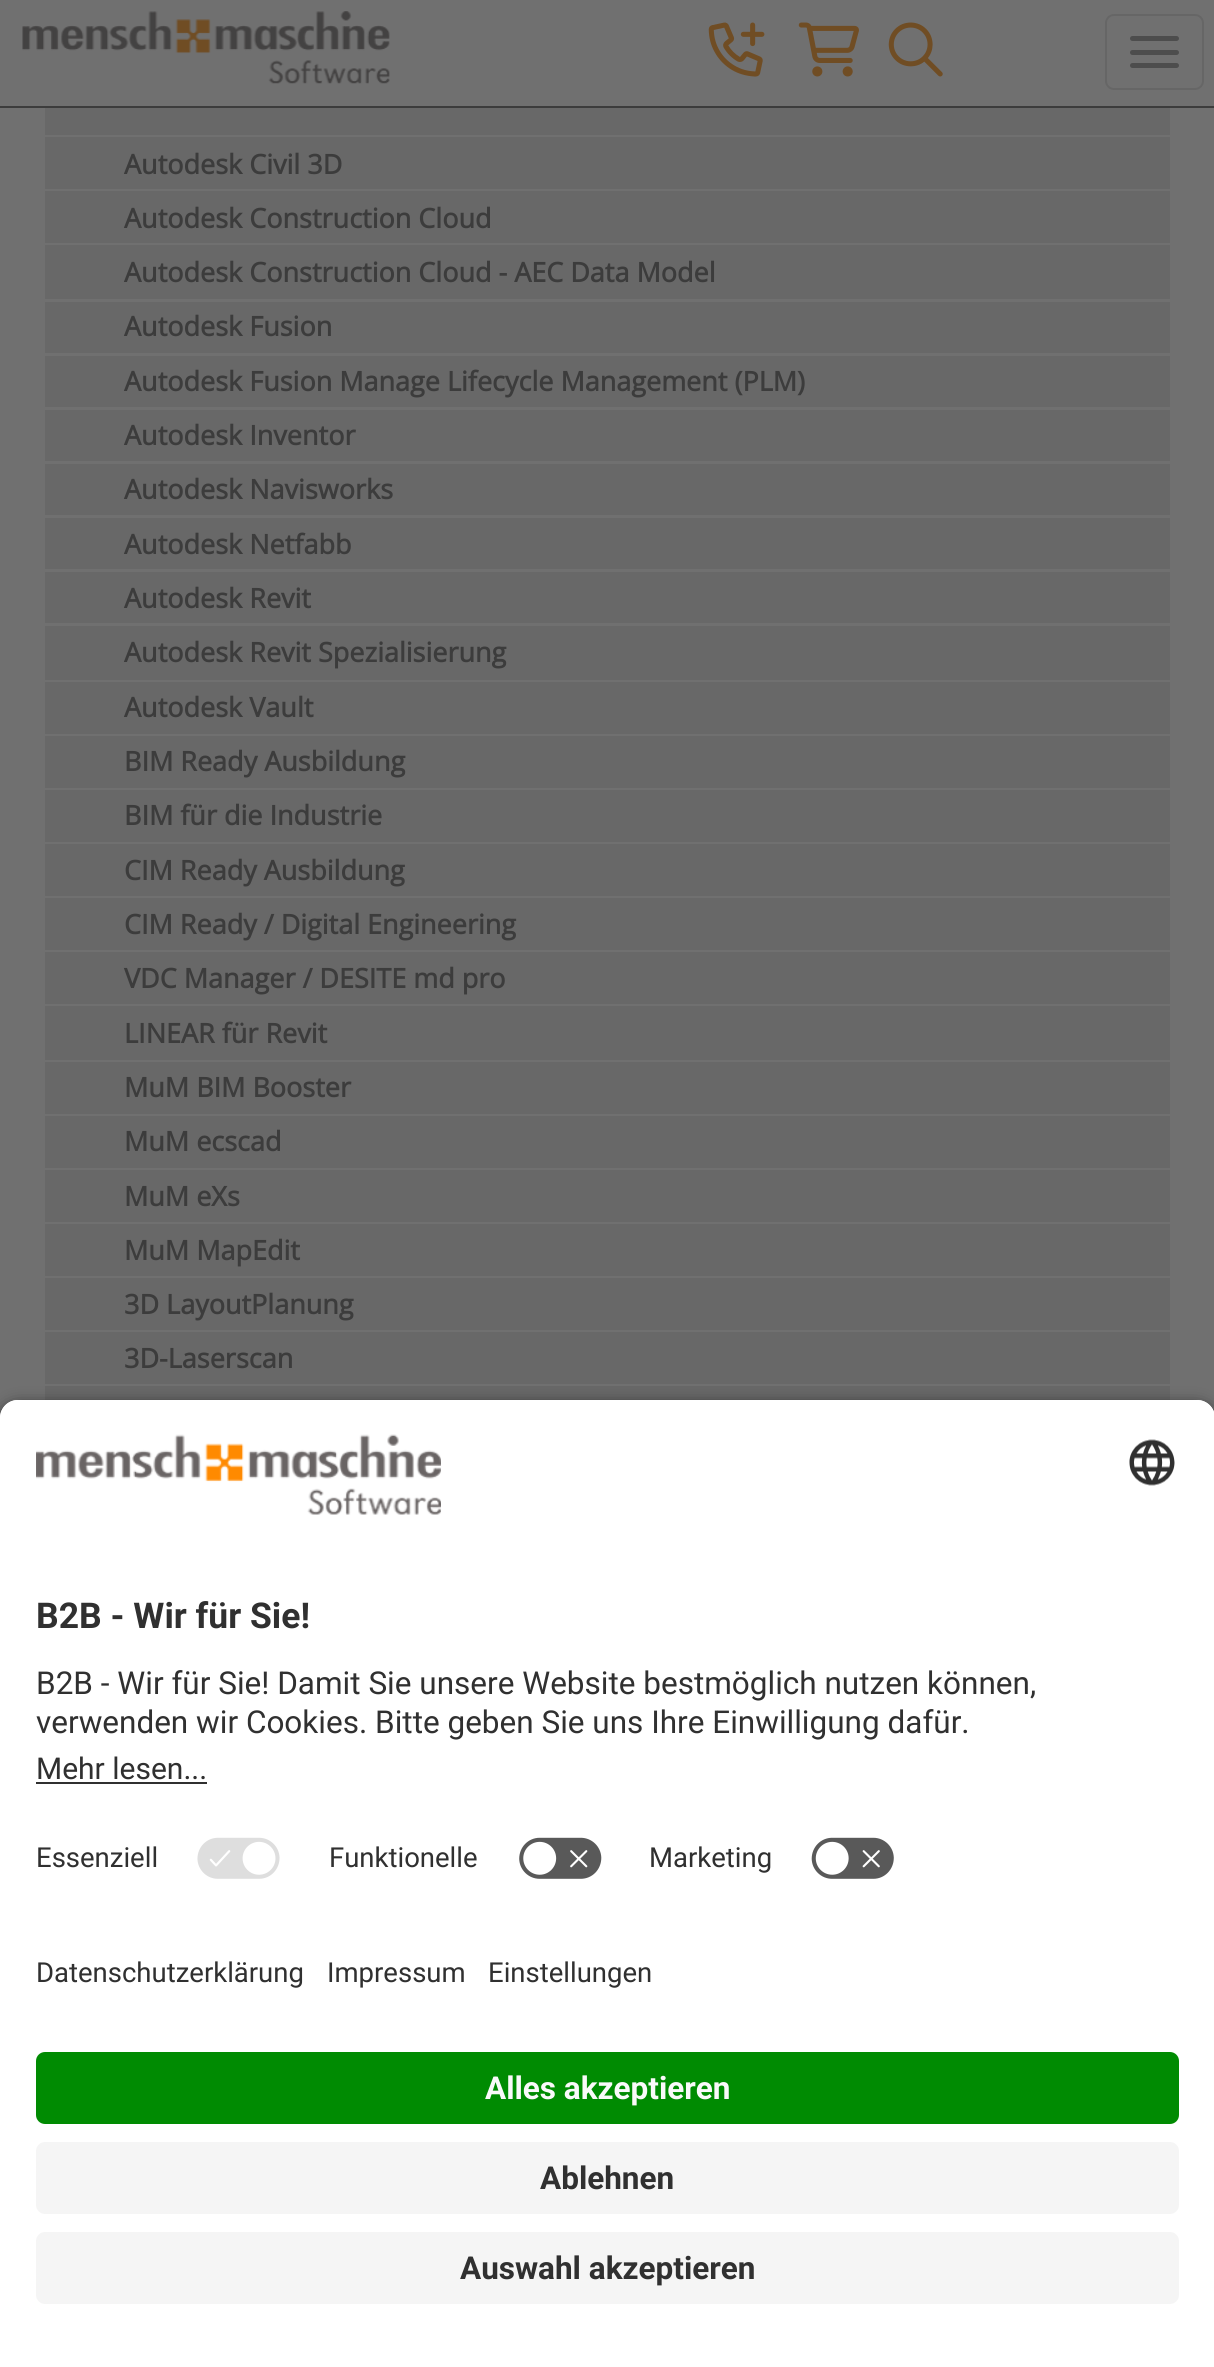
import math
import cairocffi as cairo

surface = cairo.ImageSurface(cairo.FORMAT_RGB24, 1214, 2367)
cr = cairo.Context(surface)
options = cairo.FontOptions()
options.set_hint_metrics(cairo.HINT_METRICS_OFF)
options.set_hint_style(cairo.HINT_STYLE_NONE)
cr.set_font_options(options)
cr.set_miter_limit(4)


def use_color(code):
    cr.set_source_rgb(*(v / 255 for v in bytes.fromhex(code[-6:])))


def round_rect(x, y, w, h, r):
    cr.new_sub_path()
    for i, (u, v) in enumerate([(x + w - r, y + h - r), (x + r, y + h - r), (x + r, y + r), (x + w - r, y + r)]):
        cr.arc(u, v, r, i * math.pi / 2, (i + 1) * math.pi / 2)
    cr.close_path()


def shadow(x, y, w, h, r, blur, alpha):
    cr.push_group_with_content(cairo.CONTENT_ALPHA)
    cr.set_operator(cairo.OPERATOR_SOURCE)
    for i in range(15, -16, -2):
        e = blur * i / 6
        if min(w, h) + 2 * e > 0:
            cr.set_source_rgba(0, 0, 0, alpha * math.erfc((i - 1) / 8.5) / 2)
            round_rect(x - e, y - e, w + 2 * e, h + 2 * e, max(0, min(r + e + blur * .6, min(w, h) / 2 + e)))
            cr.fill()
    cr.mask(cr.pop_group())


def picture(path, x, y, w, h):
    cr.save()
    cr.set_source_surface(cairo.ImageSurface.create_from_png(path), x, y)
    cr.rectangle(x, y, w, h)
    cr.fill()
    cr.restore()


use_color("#707070")
cr.paint()
use_color("#3c3c3c")
cr.rectangle(0, 106, 1214, 2)
cr.fill()
picture("img1.png", 22, 11, 368, 73)
round_rect(1106, 15, 97, 74, 8)
use_color("#666666")
cr.stroke()
use_color("#4d4d4d")
round_rect(1130, 36, 49, 5, 2.5)
cr.fill()
round_rect(1130, 50, 49, 5, 2.5)
cr.fill()
round_rect(1130, 63, 49, 5, 2.5)
cr.fill()
picture("img2.png", 708, 22, 57, 55)
picture("img3.png", 798, 22, 61, 55)
picture("img4.png", 888, 22, 55, 55)
use_color("#686868")
cr.rectangle(45, 108, 1125, 27)
cr.fill()
cr.rectangle(45, 137, 1125, 52)
cr.fill()
cr.select_font_face("Open Sans", cairo.FONT_SLANT_NORMAL, cairo.FONT_WEIGHT_BOLD)
cr.set_font_size(27)
use_color("#3c3c3c")
cr.move_to(124, 174)
cr.show_text("Autodesk Civil 3D")
use_color("#686868")
cr.rectangle(45, 191, 1125, 52)
cr.fill()
use_color("#3c3c3c")
cr.move_to(124, 228)
cr.show_text("Autodesk Construction Cloud")
use_color("#686868")
cr.rectangle(45, 245, 1125, 54)
cr.fill()
use_color("#3c3c3c")
cr.move_to(124, 282)
cr.show_text("Autodesk Construction Cloud - AEC Data Model")
use_color("#686868")
cr.rectangle(45, 302, 1125, 51)
cr.fill()
use_color("#3c3c3c")
cr.move_to(124, 336)
cr.show_text("Autodesk Fusion")
use_color("#686868")
cr.rectangle(45, 356, 1125, 51)
cr.fill()
use_color("#3c3c3c")
cr.move_to(124, 391)
cr.show_text("Autodesk Fusion Manage Lifecycle Management (PLM)")
use_color("#686868")
cr.rectangle(45, 410, 1125, 51)
cr.fill()
use_color("#3c3c3c")
cr.move_to(124, 445)
cr.show_text("Autodesk Inventor")
use_color("#686868")
cr.rectangle(45, 464, 1125, 51)
cr.fill()
use_color("#3c3c3c")
cr.move_to(124, 499)
cr.show_text("Autodesk Navisworks")
use_color("#686868")
cr.rectangle(45, 518, 1125, 51)
cr.fill()
use_color("#3c3c3c")
cr.move_to(124, 554)
cr.show_text("Autodesk Netfabb")
use_color("#686868")
cr.rectangle(45, 572, 1125, 51)
cr.fill()
use_color("#3c3c3c")
cr.move_to(124, 608)
cr.show_text("Autodesk Revit")
use_color("#686868")
cr.rectangle(45, 626, 1125, 54)
cr.fill()
use_color("#3c3c3c")
cr.move_to(124, 662)
cr.show_text("Autodesk Revit Spezialisierung")
use_color("#686868")
cr.rectangle(45, 682, 1125, 52)
cr.fill()
use_color("#3c3c3c")
cr.move_to(124, 717)
cr.show_text("Autodesk Vault")
use_color("#686868")
cr.rectangle(45, 736, 1125, 52)
cr.fill()
use_color("#3c3c3c")
cr.move_to(124, 771)
cr.show_text("BIM Ready Ausbildung")
use_color("#686868")
cr.rectangle(45, 790, 1125, 52)
cr.fill()
use_color("#3c3c3c")
cr.move_to(124, 825)
cr.show_text("BIM für die Industrie")
use_color("#686868")
cr.rectangle(45, 844, 1125, 52)
cr.fill()
use_color("#3c3c3c")
cr.move_to(124, 880)
cr.show_text("CIM Ready Ausbildung")
use_color("#686868")
cr.rectangle(45, 898, 1125, 52)
cr.fill()
use_color("#3c3c3c")
cr.move_to(124, 934)
cr.show_text("CIM Ready / Digital Engineering")
use_color("#686868")
cr.rectangle(45, 952, 1125, 52)
cr.fill()
use_color("#3c3c3c")
cr.move_to(124, 988)
cr.show_text("VDC Manager / DESITE md pro")
use_color("#686868")
cr.rectangle(45, 1006, 1125, 54)
cr.fill()
use_color("#3c3c3c")
cr.move_to(124, 1043)
cr.show_text("LINEAR für Revit")
use_color("#686868")
cr.rectangle(45, 1062, 1125, 52)
cr.fill()
use_color("#3c3c3c")
cr.move_to(124, 1097)
cr.show_text("MuM BIM Booster")
use_color("#686868")
cr.rectangle(45, 1116, 1125, 52)
cr.fill()
use_color("#3c3c3c")
cr.move_to(124, 1151)
cr.show_text("MuM ecscad")
use_color("#686868")
cr.rectangle(45, 1170, 1125, 52)
cr.fill()
use_color("#3c3c3c")
cr.move_to(124, 1206)
cr.show_text("MuM eXs")
use_color("#686868")
cr.rectangle(45, 1224, 1125, 52)
cr.fill()
use_color("#3c3c3c")
cr.move_to(124, 1260)
cr.show_text("MuM MapEdit")
use_color("#686868")
cr.rectangle(45, 1278, 1125, 52)
cr.fill()
use_color("#3c3c3c")
cr.move_to(124, 1314)
cr.show_text("3D LayoutPlanung")
use_color("#686868")
cr.rectangle(45, 1332, 1125, 52)
cr.fill()
use_color("#3c3c3c")
cr.move_to(124, 1368)
cr.show_text("3D-Laserscan")
use_color("#686868")
cr.rectangle(45, 1386, 1125, 14)
cr.fill()
use_color("#000000")
shadow(0, 1406, 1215, 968, 18, 8, 0.8)
use_color("#ffffff")
cr.new_path()
cr.move_to(18, 1400)
cr.line_to(1197, 1400)
cr.curve_to(1207, 1400, 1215, 1408, 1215, 1418)
cr.line_to(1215, 1922)
cr.line_to(0, 1922)
cr.line_to(0, 1418)
cr.curve_to(0, 1408, 8, 1400, 18, 1400)
cr.close_path()
cr.fill()
cr.new_path()
cr.move_to(18, 1400)
cr.line_to(1197, 1400)
cr.curve_to(1207, 1400, 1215, 1408, 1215, 1418)
cr.line_to(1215, 1823)
cr.line_to(0, 1823)
cr.line_to(0, 1418)
cr.curve_to(0, 1408, 8, 1400, 18, 1400)
cr.close_path()
cr.fill()
picture("img5.png", 36, 1434, 405, 81)
picture("img6.png", 1129, 1439, 46, 47)
cr.select_font_face("Roboto", cairo.FONT_SLANT_NORMAL, cairo.FONT_WEIGHT_BOLD)
cr.set_font_size(35.5)
use_color("#303030")
cr.move_to(36, 1628)
cr.show_text("B2B - Wir für Sie!")
cr.select_font_face("Roboto")
cr.set_font_size(31.5)
cr.move_to(36, 1694)
cr.show_text("B2B - Wir für Sie! Damit Sie unsere Website bestmöglich nutzen können,")
cr.move_to(36, 1733)
cr.show_text("verwenden wir Cookies. Bitte geben Sie uns Ihre Einwilligung dafür.")
cr.set_font_size(30)
cr.move_to(36, 1779)
cr.show_text("Mehr lesen...")
cr.rectangle(36, 1782, 171, 2)
cr.fill()
cr.set_font_size(27.5)
cr.move_to(36, 1867)
cr.show_text("Essenziell")
picture("img7.png", 197, 1837, 83, 42)
cr.move_to(329, 1867)
cr.show_text("Funktionelle")
picture("img8.png", 519, 1837, 83, 42)
cr.move_to(649, 1867)
cr.show_text("Marketing")
picture("img9.png", 811, 1837, 83, 42)
use_color("#ffffff")
cr.rectangle(0, 1922, 1214, 445)
cr.fill()
use_color("#303030")
cr.move_to(36, 1982)
cr.show_text("Datenschutzerklärung")
cr.move_to(327, 1982)
cr.show_text("Impressum")
cr.move_to(488, 1982)
cr.show_text("Einstellungen")
use_color("#008b02")
round_rect(36, 2052, 1143, 72, 9)
cr.fill()
cr.select_font_face("Roboto", cairo.FONT_SLANT_NORMAL, cairo.FONT_WEIGHT_BOLD)
cr.set_font_size(31.5)
use_color("#fafafa")
cr.move_to(485, 2099)
cr.show_text("Alles akzeptieren")
use_color("#f5f5f5")
round_rect(36, 2142, 1143, 72, 9)
cr.fill()
use_color("#303030")
cr.move_to(540, 2189)
cr.show_text("Ablehnen")
use_color("#f5f5f5")
round_rect(36, 2232, 1143, 72, 9)
cr.fill()
use_color("#303030")
cr.move_to(460, 2279)
cr.show_text("Auswahl akzeptieren")
surface.write_to_png("result.png")
